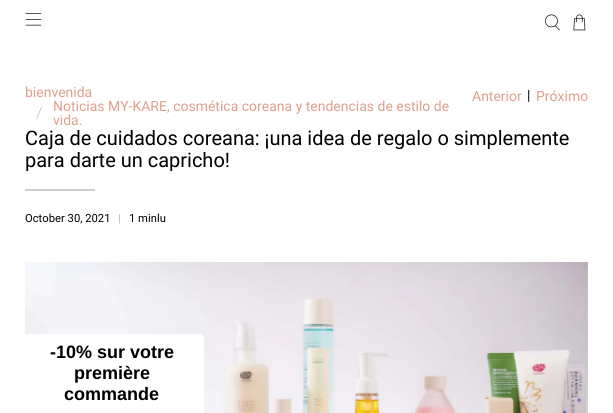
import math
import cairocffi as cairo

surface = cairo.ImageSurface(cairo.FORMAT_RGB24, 613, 413)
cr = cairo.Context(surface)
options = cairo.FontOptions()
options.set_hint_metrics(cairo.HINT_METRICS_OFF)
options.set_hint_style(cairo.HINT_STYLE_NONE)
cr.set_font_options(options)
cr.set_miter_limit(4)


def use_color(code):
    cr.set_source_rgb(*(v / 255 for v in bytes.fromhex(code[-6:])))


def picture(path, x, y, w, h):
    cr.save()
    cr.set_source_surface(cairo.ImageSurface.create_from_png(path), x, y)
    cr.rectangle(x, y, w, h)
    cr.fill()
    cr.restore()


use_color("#ffffff")
cr.paint()
picture("img1.png", 25, 13, 17, 13)
picture("img2.png", 545, 14, 15, 17)
picture("img3.png", 573, 14, 13, 17)
cr.select_font_face("Roboto")
cr.set_font_size(14)
use_color("#de9f8b")
cr.move_to(25, 97)
cr.show_text("bienvenida")
use_color("#000000")
cr.new_path()
cr.move_to(36.5, 119.5)
cr.line_to(36.5, 119)
cr.line_to(41.5, 106.5)
cr.line_to(41.5, 107)
cr.close_path()
cr.fill()
use_color("#de9f8b")
cr.move_to(53, 111)
cr.show_text("Noticias MY-KARE, cosmética coreana y tendencias de estilo de")
cr.move_to(53, 125)
cr.show_text("vida.")
cr.move_to(472, 101)
cr.show_text("Anterior")
use_color("#000000")
cr.move_to(527, 100)
cr.show_text("|")
use_color("#de9f8b")
cr.move_to(536, 101)
cr.show_text("Próximo")
cr.set_font_size(20)
use_color("#000000")
cr.move_to(25, 145)
cr.show_text("Caja de cuidados coreana: ¡una idea de regalo o simplemente")
cr.move_to(25, 167)
cr.show_text("para darte un capricho!")
use_color("#cfcfcf")
cr.rectangle(25, 189, 70, 2)
cr.fill()
cr.set_font_size(11.25)
use_color("#000000")
cr.move_to(25, 222)
cr.show_text("October 30, 2021")
use_color("#b3b3b3")
cr.move_to(118, 222)
cr.show_text("|")
use_color("#000000")
cr.move_to(129, 222)
cr.show_text("1 minlu")
picture("img4.png", 25, 262, 563, 151)
use_color("#ffffff")
cr.new_path()
cr.move_to(24, 334)
cr.line_to(200, 334)
cr.curve_to(202, 334, 204, 336, 204, 338)
cr.line_to(204, 413)
cr.line_to(20, 413)
cr.line_to(20, 338)
cr.curve_to(20, 336, 22, 334, 24, 334)
cr.close_path()
cr.fill()
cr.select_font_face("Liberation Sans", cairo.FONT_SLANT_NORMAL, cairo.FONT_WEIGHT_BOLD)
cr.set_font_size(18)
use_color("#000000")
cr.move_to(50, 358)
cr.show_text("-10% sur votre")
cr.move_to(74, 379)
cr.show_text("première")
cr.move_to(64, 400)
cr.show_text("commande")
surface.write_to_png("result.png")
